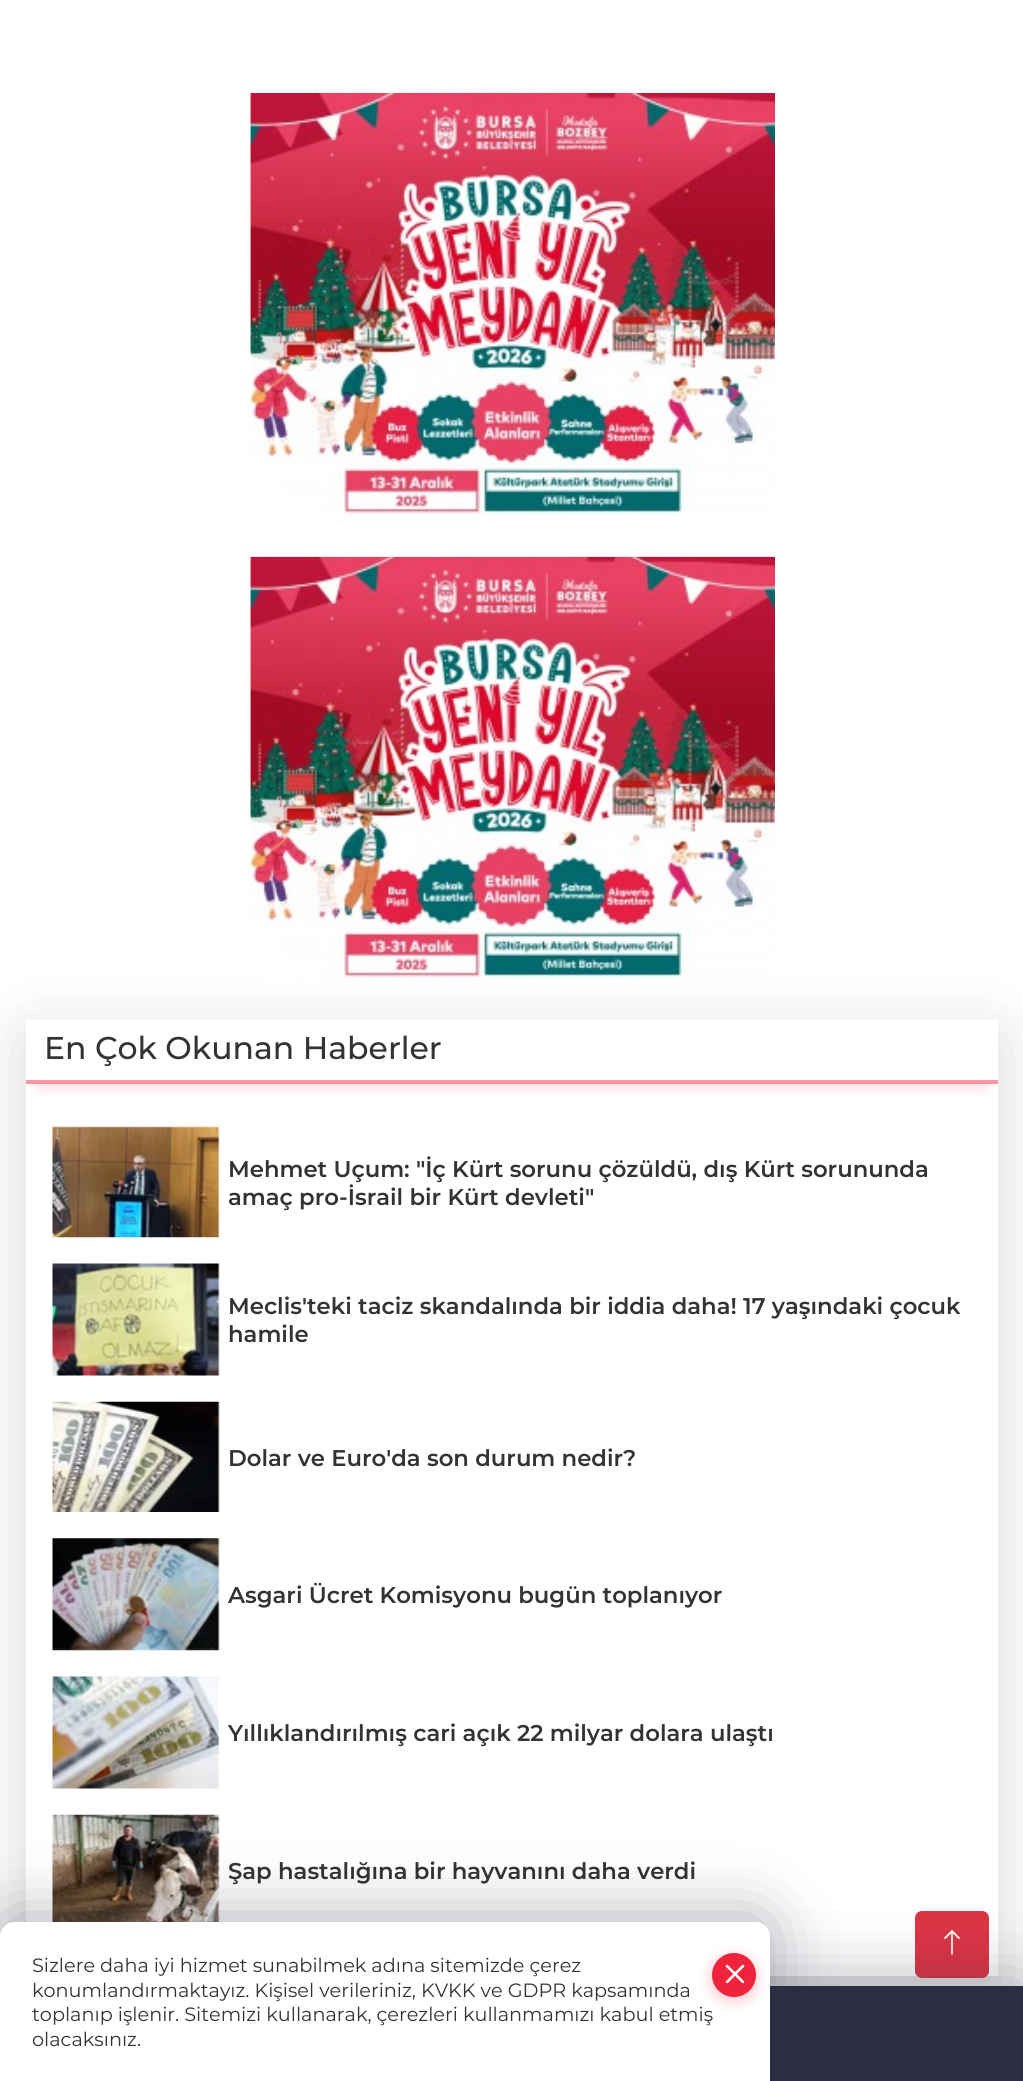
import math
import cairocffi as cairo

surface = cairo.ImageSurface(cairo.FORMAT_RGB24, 1023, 2081)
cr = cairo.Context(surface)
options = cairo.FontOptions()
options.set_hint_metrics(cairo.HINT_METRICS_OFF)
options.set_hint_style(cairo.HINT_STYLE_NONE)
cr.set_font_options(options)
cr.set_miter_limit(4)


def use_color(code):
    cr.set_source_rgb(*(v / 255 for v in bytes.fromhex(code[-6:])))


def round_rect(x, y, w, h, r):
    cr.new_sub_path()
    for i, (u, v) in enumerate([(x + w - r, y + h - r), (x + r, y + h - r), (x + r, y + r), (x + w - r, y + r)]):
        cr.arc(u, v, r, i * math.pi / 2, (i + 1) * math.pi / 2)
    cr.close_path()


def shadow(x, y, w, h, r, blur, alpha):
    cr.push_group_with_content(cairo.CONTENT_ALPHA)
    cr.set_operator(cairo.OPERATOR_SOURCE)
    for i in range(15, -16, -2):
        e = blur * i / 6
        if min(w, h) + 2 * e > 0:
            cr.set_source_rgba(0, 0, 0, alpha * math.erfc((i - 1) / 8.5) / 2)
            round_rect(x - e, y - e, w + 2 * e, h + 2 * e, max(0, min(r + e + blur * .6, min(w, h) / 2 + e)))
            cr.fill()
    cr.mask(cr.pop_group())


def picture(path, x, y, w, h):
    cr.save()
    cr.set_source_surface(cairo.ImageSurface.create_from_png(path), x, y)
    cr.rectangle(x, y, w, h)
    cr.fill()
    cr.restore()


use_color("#ffffff")
cr.paint()
picture("img1.png", 250, 93, 525, 422)
use_color("#000000")
shadow(26, 1038, 972, 955, 0, 35, 0.15)
picture("img2.png", 250, 556, 525, 422)
use_color("#ffffff")
cr.rectangle(26, 1020, 972, 956)
cr.fill()
cr.save()
cr.rectangle(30, 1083, 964, 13)
cr.clip()
use_color("#ff566a")
shadow(39, 1045, 946, 38, 0, 8, 0.38)
cr.restore()
cr.set_source_rgba(1, 0.318, 0.404, 0.6)
cr.rectangle(26, 1080, 972, 4)
cr.fill()
cr.select_font_face("Montserrat Medium")
cr.set_font_size(31.5)
use_color("#333333")
cr.move_to(44, 1059)
cr.show_text("En Çok Okunan Haberler")
picture("img3.png", 52, 1126, 168, 112)
cr.select_font_face("Montserrat SemiBold")
cr.set_font_size(22.75)
cr.move_to(228, 1177)
cr.show_text("Mehmet Uçum: \"İç Kürt sorunu çözüldü, dış Kürt sorununda")
cr.move_to(228, 1205)
cr.show_text("amaç pro-İsrail bir Kürt devleti\"")
picture("img4.png", 52, 1263, 168, 113)
cr.move_to(228, 1314)
cr.show_text("Meclis'teki taciz skandalında bir iddia daha! 17 yaşındaki çocuk")
cr.move_to(228, 1342)
cr.show_text("hamile")
picture("img5.png", 52, 1401, 168, 111)
cr.move_to(228, 1466)
cr.show_text("Dolar ve Euro'da son durum nedir?")
picture("img6.png", 52, 1538, 168, 113)
cr.move_to(228, 1603)
cr.show_text("Asgari Ücret Komisyonu bugün toplanıyor")
picture("img7.png", 52, 1676, 168, 113)
cr.move_to(228, 1741)
cr.show_text("Yıllıklandırılmış cari açık 22 milyar dolara ulaştı")
picture("img8.png", 52, 1814, 168, 108)
cr.move_to(228, 1879)
cr.show_text("Şap hastalığına bir hayvanını daha verdi")
use_color("#dc3545")
round_rect(916, 1912, 72, 65, 6)
cr.fill_preserve()
cr.stroke()
picture("img9.png", 944, 1930, 16, 25)
use_color("#2b2d42")
shadow(0, 1981, 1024, 96, 0, 33, 0.36)
use_color("#2b2d42")
cr.rectangle(770, 1986, 253, 95)
cr.fill()
use_color("#2b2d42")
shadow(0, 1916, 770, 161, 14, 33, 0.36)
use_color("#ffffff")
cr.new_path()
cr.move_to(14, 1922)
cr.line_to(756, 1922)
cr.curve_to(763.5, 1922, 770, 1928.5, 770, 1936)
cr.line_to(770, 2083)
cr.line_to(0, 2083)
cr.line_to(0, 1936)
cr.curve_to(0, 1928.5, 6.5, 1922, 14, 1922)
cr.close_path()
cr.fill()
cr.select_font_face("Montserrat")
cr.set_font_size(19.25)
use_color("#333333")
cr.move_to(32, 1972)
cr.show_text("Sizlere daha iyi hizmet sunabilmek adına sitemizde çerez")
use_color("#ff566a")
shadow(712, 1957, 44, 43, 21.5, 7, 0.38)
use_color("#ef233c")
cr.arc(734, 1975, 22, 0, 2 * math.pi)
cr.fill()
picture("img10.png", 725, 1964, 20, 20)
use_color("#333333")
cr.move_to(32, 1997)
cr.show_text("konumlandırmaktayız. Kişisel verileriniz, KVKK ve GDPR kapsamında")
cr.move_to(32, 2021)
cr.show_text("toplanıp işlenir. Sitemizi kullanarak, çerezleri kullanmamızı kabul etmiş")
cr.move_to(32, 2046)
cr.show_text("olacaksınız.")
surface.write_to_png("result.png")
